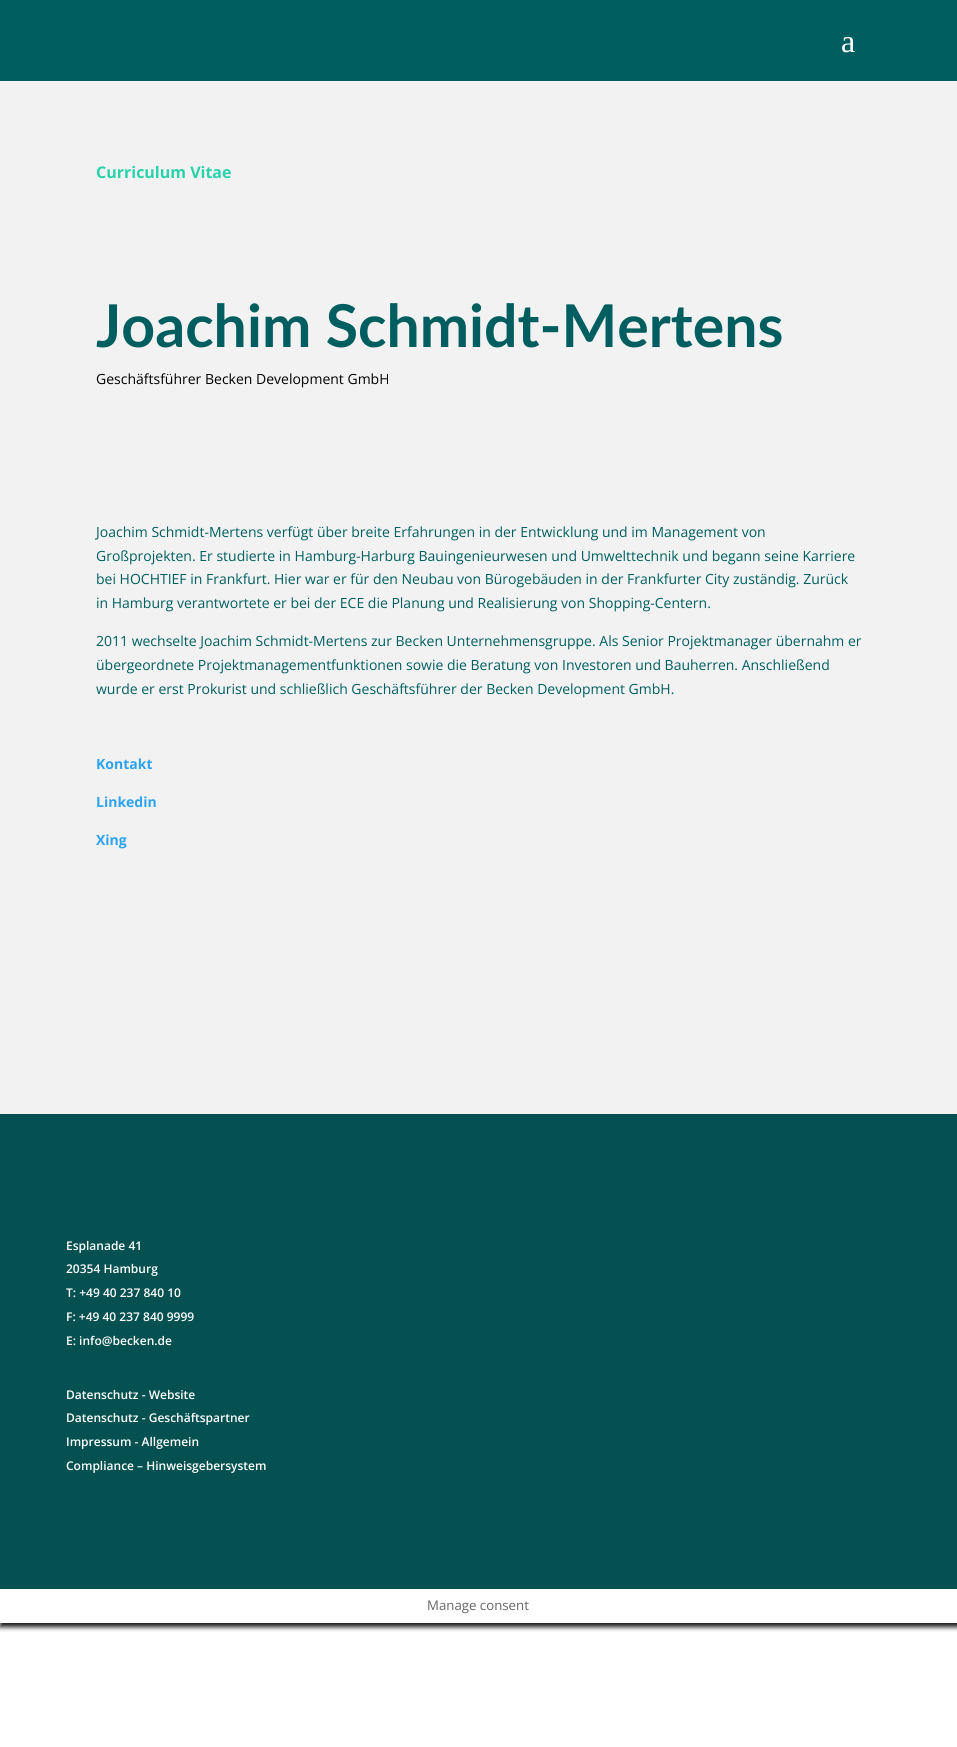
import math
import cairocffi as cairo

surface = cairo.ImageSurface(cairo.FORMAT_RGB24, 957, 1747)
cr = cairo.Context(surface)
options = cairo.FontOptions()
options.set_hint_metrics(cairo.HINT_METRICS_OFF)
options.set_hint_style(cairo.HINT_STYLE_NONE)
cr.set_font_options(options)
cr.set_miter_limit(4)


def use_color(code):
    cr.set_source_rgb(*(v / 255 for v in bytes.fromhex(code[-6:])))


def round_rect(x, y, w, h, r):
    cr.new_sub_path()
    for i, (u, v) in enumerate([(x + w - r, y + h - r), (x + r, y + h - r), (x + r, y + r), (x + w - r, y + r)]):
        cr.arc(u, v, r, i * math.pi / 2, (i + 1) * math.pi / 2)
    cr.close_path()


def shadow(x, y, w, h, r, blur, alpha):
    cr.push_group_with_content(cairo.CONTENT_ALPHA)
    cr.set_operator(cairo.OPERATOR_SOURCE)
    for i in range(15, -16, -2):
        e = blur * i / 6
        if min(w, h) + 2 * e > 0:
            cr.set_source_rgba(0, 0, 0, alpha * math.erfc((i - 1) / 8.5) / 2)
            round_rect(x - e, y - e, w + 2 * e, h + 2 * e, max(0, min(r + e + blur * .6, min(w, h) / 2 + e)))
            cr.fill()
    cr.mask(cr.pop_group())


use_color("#ffffff")
cr.paint()
use_color("#005e60")
cr.rectangle(0, 0, 957, 81)
cr.fill()
cr.select_font_face("Liberation Serif")
cr.set_font_size(32)
use_color("#ffffff")
cr.move_to(841, 52)
cr.show_text("a")
use_color("#f2f2f2")
cr.rectangle(0, 81, 957, 1033)
cr.fill()
cr.select_font_face("Open Sans", cairo.FONT_SLANT_NORMAL, cairo.FONT_WEIGHT_BOLD)
cr.set_font_size(16)
use_color("#2ad2a9")
cr.move_to(96, 178)
cr.show_text("Curriculum Vitae")
cr.select_font_face("Lato", cairo.FONT_SLANT_NORMAL, cairo.FONT_WEIGHT_BOLD)
cr.set_font_size(59)
use_color("#005e60")
cr.move_to(96, 347)
cr.show_text("Joachim Schmidt-Mertens")
cr.select_font_face("Open Sans")
cr.set_font_size(14)
use_color("#000000")
cr.move_to(96, 384)
cr.show_text("Geschäftsführer Becken Development GmbH")
use_color("#005e60")
cr.move_to(96, 537)
cr.show_text("Joachim Schmidt-Mertens verfügt über breite Erfahrungen in der Entwicklung und im Management von")
cr.move_to(96, 561)
cr.show_text("Großprojekten. Er studierte in Hamburg-Harburg Bauingenieurwesen und Umwelttechnik und begann seine Karriere")
cr.move_to(96, 584)
cr.show_text("bei HOCHTIEF in Frankfurt. Hier war er für den Neubau von Bürogebäuden in der Frankfurter City zuständig. Zurück")
cr.move_to(96, 608)
cr.show_text("in Hamburg verantwortete er bei der ECE die Planung und Realisierung von Shopping-Centern.")
cr.move_to(96, 646)
cr.show_text("2011 wechselte Joachim Schmidt-Mertens zur Becken Unternehmensgruppe. Als Senior Projektmanager übernahm er")
cr.move_to(96, 670)
cr.show_text("übergeordnete Projektmanagementfunktionen sowie die Beratung von Investoren und Bauherren. Anschließend")
cr.move_to(96, 694)
cr.show_text("wurde er erst Prokurist und schließlich Geschäftsführer der Becken Development GmbH.")
cr.select_font_face("Open Sans", cairo.FONT_SLANT_NORMAL, cairo.FONT_WEIGHT_BOLD)
use_color("#2ea3f2")
cr.move_to(96, 769)
cr.show_text("Kontakt")
cr.move_to(96, 807)
cr.show_text("Linkedin")
cr.move_to(96, 845)
cr.show_text("Xing")
cr.save()
cr.rectangle(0, 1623, 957, 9)
cr.clip()
use_color("#161616")
shadow(0, 1589, 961, 38, 0, 2.5, 1)
cr.restore()
use_color("#055151")
cr.rectangle(0, 1114, 957, 475)
cr.fill()
cr.select_font_face("Open Sans SemiBold")
cr.set_font_size(12)
use_color("#ffffff")
cr.move_to(66, 1250)
cr.show_text("Esplanade 41")
cr.move_to(66, 1273)
cr.show_text("20354 Hamburg")
cr.move_to(66, 1297)
cr.show_text("T: +49 40 237 840 10")
cr.move_to(66, 1321)
cr.show_text("F: +49 40 237 840 9999")
cr.move_to(66, 1345)
cr.show_text("E: info@becken.de")
cr.move_to(66, 1399)
cr.show_text("Datenschutz - Website")
cr.move_to(66, 1422)
cr.show_text("Datenschutz - Geschäftspartner")
cr.move_to(66, 1446)
cr.show_text("Impressum - Allgemein")
cr.move_to(66, 1470)
cr.show_text("Compliance – Hinweisgebersystem")
cr.select_font_face("Open Sans")
cr.set_font_size(13.25)
use_color("#666666")
cr.move_to(427, 1610)
cr.show_text("Manage consent")
surface.write_to_png("result.png")
